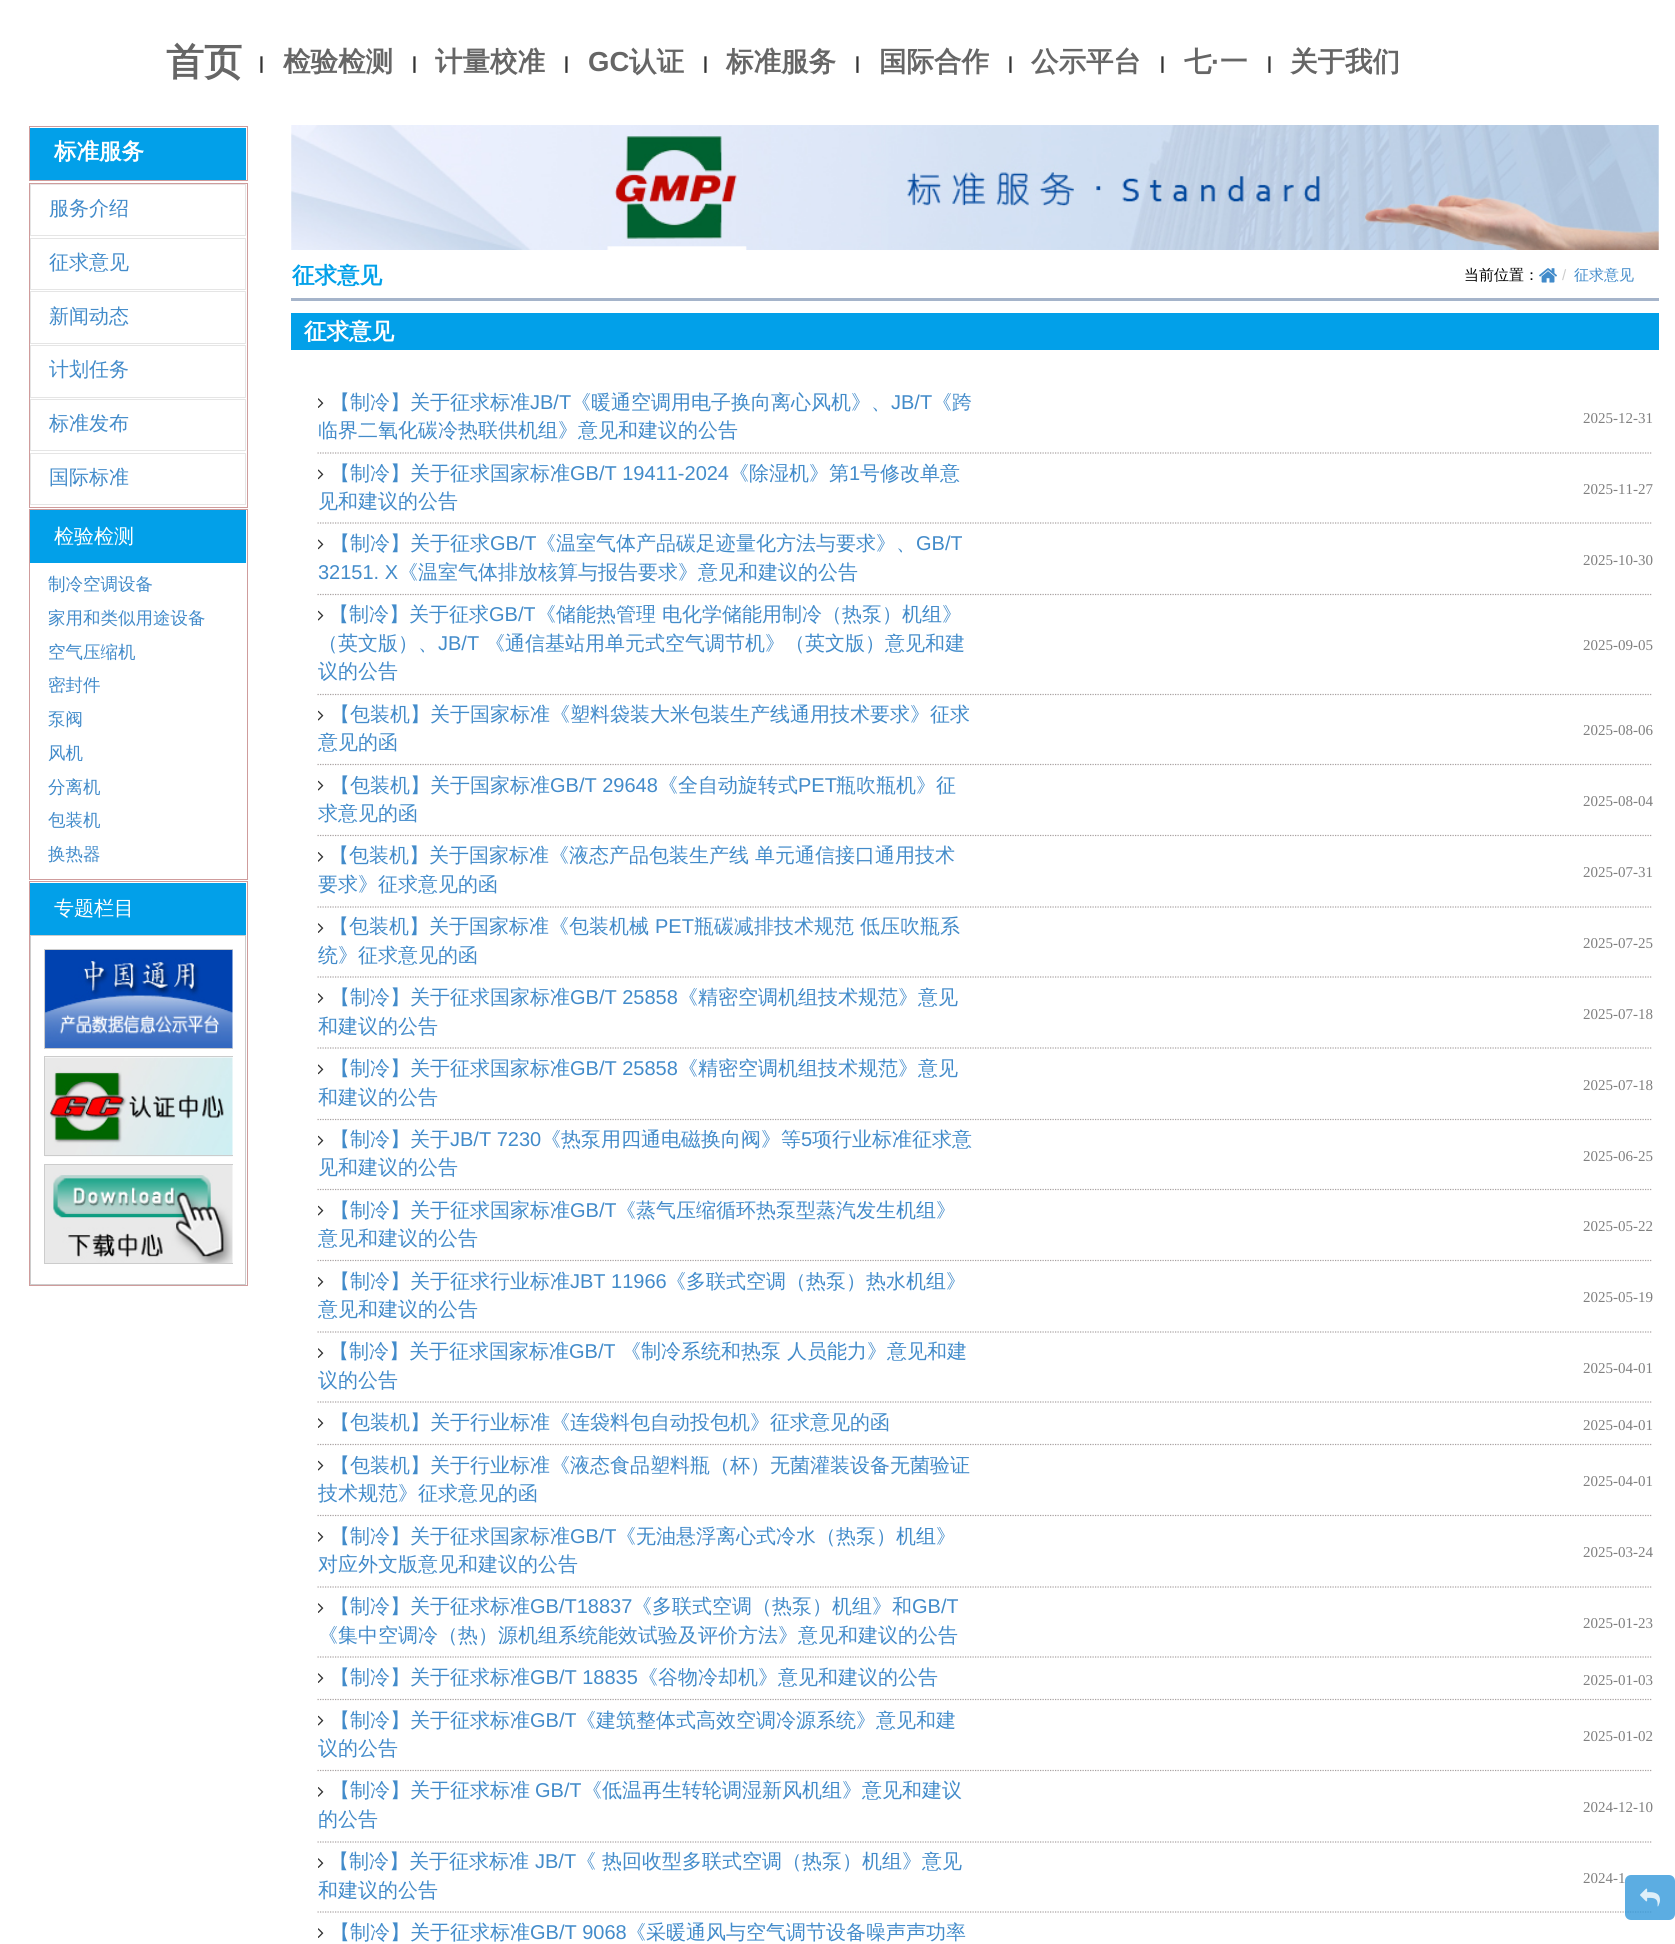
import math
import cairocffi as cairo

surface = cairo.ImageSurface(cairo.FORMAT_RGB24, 1675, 1944)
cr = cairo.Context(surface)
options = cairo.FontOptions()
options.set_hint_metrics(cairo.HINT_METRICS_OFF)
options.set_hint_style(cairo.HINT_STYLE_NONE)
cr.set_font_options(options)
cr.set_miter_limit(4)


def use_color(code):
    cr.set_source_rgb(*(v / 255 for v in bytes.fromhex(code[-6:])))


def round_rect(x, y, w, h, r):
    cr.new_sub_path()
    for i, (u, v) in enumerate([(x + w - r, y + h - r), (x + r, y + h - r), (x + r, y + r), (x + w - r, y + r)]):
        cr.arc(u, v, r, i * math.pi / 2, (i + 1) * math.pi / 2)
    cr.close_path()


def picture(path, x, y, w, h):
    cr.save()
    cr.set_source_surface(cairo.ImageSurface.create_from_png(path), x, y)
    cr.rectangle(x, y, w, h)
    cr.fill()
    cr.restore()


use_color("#ffffff")
cr.paint()
cr.select_font_face("WenQuanYi Zen Hei", cairo.FONT_SLANT_NORMAL, cairo.FONT_WEIGHT_BOLD)
cr.set_font_size(38)
use_color("#666666")
cr.move_to(166, 75)
cr.show_text("首页")
cr.select_font_face("Liberation Sans", cairo.FONT_SLANT_NORMAL, cairo.FONT_WEIGHT_BOLD)
cr.set_font_size(17.5)
use_color("#333333")
cr.move_to(259, 69)
cr.show_text("|")
cr.select_font_face("WenQuanYi Zen Hei", cairo.FONT_SLANT_NORMAL, cairo.FONT_WEIGHT_BOLD)
cr.set_font_size(27.5)
use_color("#666666")
cr.move_to(283, 71)
cr.show_text("检验检测")
cr.select_font_face("Liberation Sans", cairo.FONT_SLANT_NORMAL, cairo.FONT_WEIGHT_BOLD)
cr.set_font_size(17.5)
use_color("#333333")
cr.move_to(412, 69)
cr.show_text("|")
cr.select_font_face("WenQuanYi Zen Hei", cairo.FONT_SLANT_NORMAL, cairo.FONT_WEIGHT_BOLD)
cr.set_font_size(27.5)
use_color("#666666")
cr.move_to(435, 71)
cr.show_text("计量校准")
cr.select_font_face("Liberation Sans", cairo.FONT_SLANT_NORMAL, cairo.FONT_WEIGHT_BOLD)
cr.set_font_size(17.5)
use_color("#333333")
cr.move_to(564, 69)
cr.show_text("|")
cr.set_font_size(27.5)
use_color("#666666")
cr.move_to(588, 71)
cr.show_text("GC")
cr.select_font_face("WenQuanYi Zen Hei", cairo.FONT_SLANT_NORMAL, cairo.FONT_WEIGHT_BOLD)
cr.move_to(629, 71)
cr.show_text("认证")
cr.select_font_face("Liberation Sans", cairo.FONT_SLANT_NORMAL, cairo.FONT_WEIGHT_BOLD)
cr.set_font_size(17.5)
use_color("#333333")
cr.move_to(703, 69)
cr.show_text("|")
cr.select_font_face("WenQuanYi Zen Hei", cairo.FONT_SLANT_NORMAL, cairo.FONT_WEIGHT_BOLD)
cr.set_font_size(27.5)
use_color("#666666")
cr.move_to(726, 71)
cr.show_text("标准服务")
cr.select_font_face("Liberation Sans", cairo.FONT_SLANT_NORMAL, cairo.FONT_WEIGHT_BOLD)
cr.set_font_size(17.5)
use_color("#333333")
cr.move_to(855, 69)
cr.show_text("|")
cr.select_font_face("WenQuanYi Zen Hei", cairo.FONT_SLANT_NORMAL, cairo.FONT_WEIGHT_BOLD)
cr.set_font_size(27.5)
use_color("#666666")
cr.move_to(879, 71)
cr.show_text("国际合作")
cr.select_font_face("Liberation Sans", cairo.FONT_SLANT_NORMAL, cairo.FONT_WEIGHT_BOLD)
cr.set_font_size(17.5)
use_color("#333333")
cr.move_to(1008, 69)
cr.show_text("|")
cr.select_font_face("WenQuanYi Zen Hei", cairo.FONT_SLANT_NORMAL, cairo.FONT_WEIGHT_BOLD)
cr.set_font_size(27.5)
use_color("#666666")
cr.move_to(1031, 71)
cr.show_text("公示平台")
cr.select_font_face("Liberation Sans", cairo.FONT_SLANT_NORMAL, cairo.FONT_WEIGHT_BOLD)
cr.set_font_size(17.5)
use_color("#333333")
cr.move_to(1160, 69)
cr.show_text("|")
cr.select_font_face("WenQuanYi Zen Hei", cairo.FONT_SLANT_NORMAL, cairo.FONT_WEIGHT_BOLD)
cr.set_font_size(27.5)
use_color("#666666")
cr.move_to(1184, 71)
cr.show_text("七")
cr.select_font_face("Liberation Sans", cairo.FONT_SLANT_NORMAL, cairo.FONT_WEIGHT_BOLD)
cr.move_to(1211, 71)
cr.show_text("·")
cr.select_font_face("WenQuanYi Zen Hei", cairo.FONT_SLANT_NORMAL, cairo.FONT_WEIGHT_BOLD)
cr.move_to(1220, 71)
cr.show_text("一")
cr.select_font_face("Liberation Sans", cairo.FONT_SLANT_NORMAL, cairo.FONT_WEIGHT_BOLD)
cr.set_font_size(17.5)
use_color("#333333")
cr.move_to(1267, 69)
cr.show_text("|")
cr.select_font_face("WenQuanYi Zen Hei", cairo.FONT_SLANT_NORMAL, cairo.FONT_WEIGHT_BOLD)
cr.set_font_size(27.5)
use_color("#666666")
cr.move_to(1290, 71)
cr.show_text("关于我们")
cr.rectangle(29.5, 126.5, 218, 54)
use_color("#cf9c9c")
cr.set_line_width(1)
cr.stroke()
use_color("#02a0e9")
cr.rectangle(30, 128, 216, 52)
cr.fill()
cr.set_font_size(22.5)
use_color("#ffffff")
cr.move_to(54, 159)
cr.show_text("标准服务")
cr.rectangle(29.5, 183.5, 218, 324)
use_color("#cf9c9c")
cr.stroke()
cr.rectangle(30.5, 184.5, 215, 51)
use_color("#e5e5e5")
cr.stroke()
cr.select_font_face("WenQuanYi Zen Hei Medium")
cr.set_font_size(20)
use_color("#428bca")
cr.move_to(49, 215)
cr.show_text("服务介绍")
cr.rectangle(30.5, 238.5, 215, 51)
use_color("#e5e5e5")
cr.stroke()
use_color("#428bca")
cr.move_to(49, 269)
cr.show_text("征求意见")
cr.rectangle(30.5, 291.5, 215, 52)
use_color("#e5e5e5")
cr.stroke()
use_color("#428bca")
cr.move_to(49, 323)
cr.show_text("新闻动态")
cr.rectangle(30.5, 345.5, 215, 52)
use_color("#e5e5e5")
cr.stroke()
use_color("#428bca")
cr.move_to(49, 376)
cr.show_text("计划任务")
cr.rectangle(30.5, 399.5, 215, 51)
use_color("#e5e5e5")
cr.stroke()
use_color("#428bca")
cr.move_to(49, 430)
cr.show_text("标准发布")
cr.rectangle(30.5, 453.5, 215, 51)
use_color("#e5e5e5")
cr.stroke()
use_color("#428bca")
cr.move_to(49, 484)
cr.show_text("国际标准")
cr.rectangle(29.5, 509.5, 218, 370)
use_color("#cf9c9c")
cr.stroke()
use_color("#02a0e9")
cr.rectangle(30, 510, 216, 53)
cr.fill()
use_color("#ffffff")
cr.move_to(54, 543)
cr.show_text("检验检测")
cr.set_font_size(17.5)
use_color("#428bca")
cr.move_to(48, 590)
cr.show_text("制冷空调设备")
cr.move_to(48, 624)
cr.show_text("家用和类似用途设备")
cr.move_to(48, 658)
cr.show_text("空气压缩机")
cr.move_to(48, 691)
cr.show_text("密封件")
cr.move_to(48, 725)
cr.show_text("泵阀")
cr.move_to(48, 759)
cr.show_text("风机")
cr.move_to(48, 793)
cr.show_text("分离机")
cr.move_to(48, 826)
cr.show_text("包装机")
cr.move_to(48, 860)
cr.show_text("换热器")
cr.rectangle(29.5, 881.5, 218, 404)
use_color("#cf9c9c")
cr.stroke()
use_color("#02a0e9")
cr.rectangle(30, 883, 216, 52)
cr.fill()
cr.set_font_size(20)
use_color("#ffffff")
cr.move_to(54, 915)
cr.show_text("专题栏目")
cr.rectangle(30.5, 935.5, 215, 349)
use_color("#cccccc")
cr.stroke()
picture("img1.png", 45, 950, 188, 98)
cr.save()
cr.rectangle(44, 949, 189, 322)
cr.clip()
cr.rectangle(44.5, 949.5, 189, 99)
cr.stroke()
cr.restore()
picture("img2.png", 45, 1057, 188, 100)
cr.save()
cr.rectangle(44, 949, 189, 322)
cr.clip()
cr.rectangle(44.5, 1056.5, 189, 99)
cr.stroke()
cr.restore()
picture("img3.png", 45, 1165, 188, 98)
cr.save()
cr.rectangle(44, 949, 189, 322)
cr.clip()
cr.rectangle(44.5, 1164.5, 189, 99)
cr.stroke()
cr.restore()
picture("img4.png", 291, 125, 1368, 125)
use_color("#a5b4ca")
cr.rectangle(291, 298, 1368, 3)
cr.fill()
cr.select_font_face("WenQuanYi Zen Hei", cairo.FONT_SLANT_NORMAL, cairo.FONT_WEIGHT_BOLD)
cr.set_font_size(22.5)
use_color("#02a0e9")
cr.move_to(292, 283)
cr.show_text("征求意见")
cr.select_font_face("WenQuanYi Zen Hei Medium")
cr.set_font_size(15)
use_color("#000000")
cr.move_to(1464, 280)
cr.show_text("当前位置：")
picture("img5.png", 1539, 268, 18, 15)
cr.select_font_face("Liberation Sans")
use_color("#cccccc")
cr.move_to(1562, 280)
cr.show_text("/")
cr.select_font_face("WenQuanYi Zen Hei Medium")
use_color("#428bca")
cr.move_to(1574, 280)
cr.show_text("征求意见")
use_color("#02a0e9")
cr.rectangle(291, 313, 1368, 37)
cr.fill()
cr.select_font_face("WenQuanYi Zen Hei", cairo.FONT_SLANT_NORMAL, cairo.FONT_WEIGHT_BOLD)
cr.set_font_size(22.5)
use_color("#ffffff")
cr.move_to(304, 339)
cr.show_text("征求意见")
cr.new_path()
cr.move_to(317.5, 453)
cr.line_to(975, 453)
use_color("#a8a1a1")
cr.set_line_width(1.2)
cr.set_dash([1.25, 1.25])
cr.stroke()
picture("img6.png", 318, 398, 6, 10)
cr.select_font_face("WenQuanYi Zen Hei Medium")
cr.set_font_size(20)
use_color("#428bca")
cr.move_to(330, 409)
cr.show_text("【制冷】关于征求标准")
cr.select_font_face("Liberation Sans")
cr.move_to(530, 409)
cr.show_text("JB/T")
cr.select_font_face("WenQuanYi Zen Hei Medium")
cr.move_to(571, 409)
cr.show_text("《暖通空调用电子换向离心风机》、")
cr.select_font_face("Liberation Sans")
cr.move_to(891, 409)
cr.show_text("JB/T")
cr.select_font_face("WenQuanYi Zen Hei Medium")
cr.move_to(932, 409)
cr.show_text("《跨")
cr.move_to(318, 437)
cr.show_text("临界二氧化碳冷热联供机组》意见和建议的公告")
cr.new_path()
cr.move_to(975, 453)
cr.line_to(1652.5, 453)
use_color("#a8a1a1")
cr.stroke()
cr.select_font_face("Liberation Serif")
cr.set_font_size(15)
use_color("#808080")
cr.move_to(1583, 423)
cr.show_text("2025-12-31")
cr.new_path()
cr.move_to(317.5, 523)
cr.line_to(975, 523)
use_color("#a8a1a1")
cr.stroke()
picture("img7.png", 318, 469, 6, 11)
cr.select_font_face("WenQuanYi Zen Hei Medium")
cr.set_font_size(20)
use_color("#428bca")
cr.move_to(330, 480)
cr.show_text("【制冷】关于征求国家标准")
cr.select_font_face("Liberation Sans")
cr.move_to(570, 480)
cr.show_text("GB/T 19411-2024")
cr.select_font_face("WenQuanYi Zen Hei Medium")
cr.move_to(729, 480)
cr.show_text("《除湿机》第")
cr.select_font_face("Liberation Sans")
cr.move_to(849, 480)
cr.show_text("1")
cr.select_font_face("WenQuanYi Zen Hei Medium")
cr.move_to(860, 480)
cr.show_text("号修改单意")
cr.move_to(318, 508)
cr.show_text("见和建议的公告")
cr.new_path()
cr.move_to(975, 523)
cr.line_to(1652.5, 523)
use_color("#a8a1a1")
cr.stroke()
cr.select_font_face("Liberation Serif")
cr.set_font_size(15)
use_color("#808080")
cr.move_to(1583, 494)
cr.show_text("2025-11-27")
cr.new_path()
cr.move_to(317.5, 594.5)
cr.line_to(975, 594.5)
use_color("#a8a1a1")
cr.stroke()
picture("img7.png", 318, 539, 6, 11)
cr.select_font_face("WenQuanYi Zen Hei Medium")
cr.set_font_size(20)
use_color("#428bca")
cr.move_to(330, 550)
cr.show_text("【制冷】关于征求")
cr.select_font_face("Liberation Sans")
cr.move_to(490, 550)
cr.show_text("GB/T")
cr.select_font_face("WenQuanYi Zen Hei Medium")
cr.move_to(536, 550)
cr.show_text("《温室气体产品碳足迹量化方法与要求》、")
cr.select_font_face("Liberation Sans")
cr.move_to(916, 550)
cr.show_text("GB/T")
cr.move_to(318, 579)
cr.show_text("32151. X")
cr.select_font_face("WenQuanYi Zen Hei Medium")
cr.move_to(398, 579)
cr.show_text("《温室气体排放核算与报告要求》意见和建议的公告")
cr.new_path()
cr.move_to(975, 594.5)
cr.line_to(1652.5, 594.5)
use_color("#a8a1a1")
cr.stroke()
cr.select_font_face("Liberation Serif")
cr.set_font_size(15)
use_color("#808080")
cr.move_to(1583, 565)
cr.show_text("2025-10-30")
cr.new_path()
cr.move_to(317.5, 694.5)
cr.line_to(975, 694.5)
use_color("#a8a1a1")
cr.stroke()
picture("img8.png", 318, 610, 6, 11)
cr.select_font_face("WenQuanYi Zen Hei Medium")
cr.set_font_size(20)
use_color("#428bca")
cr.move_to(329, 621)
cr.show_text("【制冷】关于征求")
cr.select_font_face("Liberation Sans")
cr.move_to(489, 621)
cr.show_text("GB/T")
cr.select_font_face("WenQuanYi Zen Hei Medium")
cr.move_to(536, 621)
cr.show_text("《储能热管理 电化学储能用制冷（热泵）机组》")
cr.move_to(318, 650)
cr.show_text("（英文版）、")
cr.select_font_face("Liberation Sans")
cr.move_to(438, 650)
cr.show_text("JB/T")
cr.select_font_face("WenQuanYi Zen Hei Medium")
cr.move_to(485, 650)
cr.show_text("《通信基站用单元式空气调节机》（英文版）意见和建")
cr.move_to(318, 678)
cr.show_text("议的公告")
cr.new_path()
cr.move_to(975, 694.5)
cr.line_to(1652.5, 694.5)
use_color("#a8a1a1")
cr.stroke()
cr.select_font_face("Liberation Serif")
cr.set_font_size(15)
use_color("#808080")
cr.move_to(1583, 650)
cr.show_text("2025-09-05")
cr.new_path()
cr.move_to(317.5, 764.5)
cr.line_to(975, 764.5)
use_color("#a8a1a1")
cr.stroke()
picture("img8.png", 318, 710, 6, 11)
cr.select_font_face("WenQuanYi Zen Hei Medium")
cr.set_font_size(20)
use_color("#428bca")
cr.move_to(330, 721)
cr.show_text("【包装机】关于国家标准《塑料袋装大米包装生产线通用技术要求》征求")
cr.move_to(318, 749)
cr.show_text("意见的函")
cr.new_path()
cr.move_to(975, 764.5)
cr.line_to(1652.5, 764.5)
use_color("#a8a1a1")
cr.stroke()
cr.select_font_face("Liberation Serif")
cr.set_font_size(15)
use_color("#808080")
cr.move_to(1583, 735)
cr.show_text("2025-08-06")
cr.new_path()
cr.move_to(317.5, 835.5)
cr.line_to(975, 835.5)
use_color("#a8a1a1")
cr.stroke()
picture("img8.png", 318, 780, 6, 11)
cr.select_font_face("WenQuanYi Zen Hei Medium")
cr.set_font_size(20)
use_color("#428bca")
cr.move_to(330, 792)
cr.show_text("【包装机】关于国家标准")
cr.select_font_face("Liberation Sans")
cr.move_to(550, 792)
cr.show_text("GB/T 29648")
cr.select_font_face("WenQuanYi Zen Hei Medium")
cr.move_to(658, 792)
cr.show_text("《全自动旋转式")
cr.select_font_face("Liberation Sans")
cr.move_to(798, 792)
cr.show_text("PET")
cr.select_font_face("WenQuanYi Zen Hei Medium")
cr.move_to(836, 792)
cr.show_text("瓶吹瓶机》征")
cr.move_to(318, 820)
cr.show_text("求意见的函")
cr.new_path()
cr.move_to(975, 835.5)
cr.line_to(1652.5, 835.5)
use_color("#a8a1a1")
cr.stroke()
cr.select_font_face("Liberation Serif")
cr.set_font_size(15)
use_color("#808080")
cr.move_to(1583, 806)
cr.show_text("2025-08-04")
cr.new_path()
cr.move_to(317.5, 907)
cr.line_to(975, 907)
use_color("#a8a1a1")
cr.stroke()
picture("img9.png", 318, 852, 6, 10)
cr.select_font_face("WenQuanYi Zen Hei Medium")
cr.set_font_size(20)
use_color("#428bca")
cr.move_to(329, 862)
cr.show_text("【包装机】关于国家标准《液态产品包装生产线 单元通信接口通用技术")
cr.move_to(318, 891)
cr.show_text("要求》征求意见的函")
cr.new_path()
cr.move_to(975, 907)
cr.line_to(1652.5, 907)
use_color("#a8a1a1")
cr.stroke()
cr.select_font_face("Liberation Serif")
cr.set_font_size(15)
use_color("#808080")
cr.move_to(1583, 877)
cr.show_text("2025-07-31")
cr.new_path()
cr.move_to(317.5, 977)
cr.line_to(975, 977)
use_color("#a8a1a1")
cr.stroke()
picture("img6.png", 318, 923, 6, 10)
cr.select_font_face("WenQuanYi Zen Hei Medium")
cr.set_font_size(20)
use_color("#428bca")
cr.move_to(329, 933)
cr.show_text("【包装机】关于国家标准《包装机械")
cr.select_font_face("Liberation Sans")
cr.move_to(655, 933)
cr.show_text("PET")
cr.select_font_face("WenQuanYi Zen Hei Medium")
cr.move_to(694, 933)
cr.show_text("瓶碳减排技术规范 低压吹瓶系")
cr.move_to(318, 962)
cr.show_text("统》征求意见的函")
cr.new_path()
cr.move_to(975, 977)
cr.line_to(1652.5, 977)
use_color("#a8a1a1")
cr.stroke()
cr.select_font_face("Liberation Serif")
cr.set_font_size(15)
use_color("#808080")
cr.move_to(1583, 948)
cr.show_text("2025-07-25")
cr.new_path()
cr.move_to(317.5, 1048)
cr.line_to(975, 1048)
use_color("#a8a1a1")
cr.stroke()
picture("img6.png", 318, 993, 6, 10)
cr.select_font_face("WenQuanYi Zen Hei Medium")
cr.set_font_size(20)
use_color("#428bca")
cr.move_to(330, 1004)
cr.show_text("【制冷】关于征求国家标准")
cr.select_font_face("Liberation Sans")
cr.move_to(570, 1004)
cr.show_text("GB/T 25858")
cr.select_font_face("WenQuanYi Zen Hei Medium")
cr.move_to(678, 1004)
cr.show_text("《精密空调机组技术规范》意见")
cr.move_to(318, 1033)
cr.show_text("和建议的公告")
cr.new_path()
cr.move_to(975, 1048)
cr.line_to(1652.5, 1048)
use_color("#a8a1a1")
cr.stroke()
cr.select_font_face("Liberation Serif")
cr.set_font_size(15)
use_color("#808080")
cr.move_to(1583, 1019)
cr.show_text("2025-07-18")
cr.new_path()
cr.move_to(317.5, 1119.5)
cr.line_to(975, 1119.5)
use_color("#a8a1a1")
cr.stroke()
picture("img7.png", 318, 1064, 6, 11)
cr.select_font_face("WenQuanYi Zen Hei Medium")
cr.set_font_size(20)
use_color("#428bca")
cr.move_to(330, 1075)
cr.show_text("【制冷】关于征求国家标准")
cr.select_font_face("Liberation Sans")
cr.move_to(570, 1075)
cr.show_text("GB/T 25858")
cr.select_font_face("WenQuanYi Zen Hei Medium")
cr.move_to(678, 1075)
cr.show_text("《精密空调机组技术规范》意见")
cr.move_to(318, 1104)
cr.show_text("和建议的公告")
cr.new_path()
cr.move_to(975, 1119.5)
cr.line_to(1652.5, 1119.5)
use_color("#a8a1a1")
cr.stroke()
cr.select_font_face("Liberation Serif")
cr.set_font_size(15)
use_color("#808080")
cr.move_to(1583, 1090)
cr.show_text("2025-07-18")
cr.new_path()
cr.move_to(317.5, 1189.5)
cr.line_to(975, 1189.5)
use_color("#a8a1a1")
cr.stroke()
picture("img8.png", 318, 1135, 6, 11)
cr.select_font_face("WenQuanYi Zen Hei Medium")
cr.set_font_size(20)
use_color("#428bca")
cr.move_to(330, 1146)
cr.show_text("【制冷】关于")
cr.select_font_face("Liberation Sans")
cr.move_to(450, 1146)
cr.show_text("JB/T 7230")
cr.select_font_face("WenQuanYi Zen Hei Medium")
cr.move_to(541, 1146)
cr.show_text("《热泵用四通电磁换向阀》等")
cr.select_font_face("Liberation Sans")
cr.move_to(801, 1146)
cr.show_text("5")
cr.select_font_face("WenQuanYi Zen Hei Medium")
cr.move_to(812, 1146)
cr.show_text("项行业标准征求意")
cr.move_to(318, 1174)
cr.show_text("见和建议的公告")
cr.new_path()
cr.move_to(975, 1189.5)
cr.line_to(1652.5, 1189.5)
use_color("#a8a1a1")
cr.stroke()
cr.select_font_face("Liberation Serif")
cr.set_font_size(15)
use_color("#808080")
cr.move_to(1583, 1161)
cr.show_text("2025-06-25")
cr.new_path()
cr.move_to(317.5, 1260.5)
cr.line_to(975, 1260.5)
use_color("#a8a1a1")
cr.stroke()
picture("img8.png", 318, 1205, 6, 11)
cr.select_font_face("WenQuanYi Zen Hei Medium")
cr.set_font_size(20)
use_color("#428bca")
cr.move_to(330, 1217)
cr.show_text("【制冷】关于征求国家标准")
cr.select_font_face("Liberation Sans")
cr.move_to(570, 1217)
cr.show_text("GB/T")
cr.select_font_face("WenQuanYi Zen Hei Medium")
cr.move_to(616, 1217)
cr.show_text("《蒸气压缩循环热泵型蒸汽发生机组》")
cr.move_to(318, 1245)
cr.show_text("意见和建议的公告")
cr.new_path()
cr.move_to(975, 1260.5)
cr.line_to(1652.5, 1260.5)
use_color("#a8a1a1")
cr.stroke()
cr.select_font_face("Liberation Serif")
cr.set_font_size(15)
use_color("#808080")
cr.move_to(1583, 1231)
cr.show_text("2025-05-22")
cr.new_path()
cr.move_to(317.5, 1332)
cr.line_to(975, 1332)
use_color("#a8a1a1")
cr.stroke()
picture("img9.png", 318, 1277, 6, 10)
cr.select_font_face("WenQuanYi Zen Hei Medium")
cr.set_font_size(20)
use_color("#428bca")
cr.move_to(330, 1288)
cr.show_text("【制冷】关于征求行业标准")
cr.select_font_face("Liberation Sans")
cr.move_to(570, 1288)
cr.show_text("JBT 11966")
cr.select_font_face("WenQuanYi Zen Hei Medium")
cr.move_to(666, 1288)
cr.show_text("《多联式空调（热泵）热水机组》")
cr.move_to(318, 1316)
cr.show_text("意见和建议的公告")
cr.new_path()
cr.move_to(975, 1332)
cr.line_to(1652.5, 1332)
use_color("#a8a1a1")
cr.stroke()
cr.select_font_face("Liberation Serif")
cr.set_font_size(15)
use_color("#808080")
cr.move_to(1583, 1302)
cr.show_text("2025-05-19")
cr.new_path()
cr.move_to(317.5, 1402)
cr.line_to(975, 1402)
use_color("#a8a1a1")
cr.stroke()
picture("img6.png", 318, 1348, 6, 10)
cr.select_font_face("WenQuanYi Zen Hei Medium")
cr.set_font_size(20)
use_color("#428bca")
cr.move_to(329, 1358)
cr.show_text("【制冷】关于征求国家标准")
cr.select_font_face("Liberation Sans")
cr.move_to(569, 1358)
cr.show_text("GB/T")
cr.select_font_face("WenQuanYi Zen Hei Medium")
cr.move_to(621, 1358)
cr.show_text("《制冷系统和热泵 人员能力》意见和建")
cr.move_to(318, 1387)
cr.show_text("议的公告")
cr.new_path()
cr.move_to(975, 1402)
cr.line_to(1652.5, 1402)
use_color("#a8a1a1")
cr.stroke()
cr.select_font_face("Liberation Serif")
cr.set_font_size(15)
use_color("#808080")
cr.move_to(1583, 1373)
cr.show_text("2025-04-01")
cr.new_path()
cr.move_to(317.5, 1444.5)
cr.line_to(975, 1444.5)
use_color("#a8a1a1")
cr.stroke()
picture("img6.png", 318, 1418, 6, 10)
cr.select_font_face("WenQuanYi Zen Hei Medium")
cr.set_font_size(20)
use_color("#428bca")
cr.move_to(330, 1429)
cr.show_text("【包装机】关于行业标准《连袋料包自动投包机》征求意见的函")
cr.new_path()
cr.move_to(975, 1444.5)
cr.line_to(1652.5, 1444.5)
use_color("#a8a1a1")
cr.stroke()
cr.select_font_face("Liberation Serif")
cr.set_font_size(15)
use_color("#808080")
cr.move_to(1583, 1430)
cr.show_text("2025-04-01")
cr.new_path()
cr.move_to(317.5, 1515.5)
cr.line_to(975, 1515.5)
use_color("#a8a1a1")
cr.stroke()
picture("img8.png", 318, 1460, 6, 11)
cr.select_font_face("WenQuanYi Zen Hei Medium")
cr.set_font_size(20)
use_color("#428bca")
cr.move_to(330, 1472)
cr.show_text("【包装机】关于行业标准《液态食品塑料瓶（杯）无菌灌装设备无菌验证")
cr.move_to(318, 1500)
cr.show_text("技术规范》征求意见的函")
cr.new_path()
cr.move_to(975, 1515.5)
cr.line_to(1652.5, 1515.5)
use_color("#a8a1a1")
cr.stroke()
cr.select_font_face("Liberation Serif")
cr.set_font_size(15)
use_color("#808080")
cr.move_to(1583, 1486)
cr.show_text("2025-04-01")
cr.new_path()
cr.move_to(317.5, 1587)
cr.line_to(975, 1587)
use_color("#a8a1a1")
cr.stroke()
picture("img9.png", 318, 1532, 6, 10)
cr.select_font_face("WenQuanYi Zen Hei Medium")
cr.set_font_size(20)
use_color("#428bca")
cr.move_to(330, 1543)
cr.show_text("【制冷】关于征求国家标准")
cr.select_font_face("Liberation Sans")
cr.move_to(570, 1543)
cr.show_text("GB/T")
cr.select_font_face("WenQuanYi Zen Hei Medium")
cr.move_to(616, 1543)
cr.show_text("《无油悬浮离心式冷水（热泵）机组》")
cr.move_to(318, 1571)
cr.show_text("对应外文版意见和建议的公告")
cr.new_path()
cr.move_to(975, 1587)
cr.line_to(1652.5, 1587)
use_color("#a8a1a1")
cr.stroke()
cr.select_font_face("Liberation Serif")
cr.set_font_size(15)
use_color("#808080")
cr.move_to(1583, 1557)
cr.show_text("2025-03-24")
cr.new_path()
cr.move_to(317.5, 1657)
cr.line_to(975, 1657)
use_color("#a8a1a1")
cr.stroke()
picture("img6.png", 318, 1603, 6, 10)
cr.select_font_face("WenQuanYi Zen Hei Medium")
cr.set_font_size(20)
use_color("#428bca")
cr.move_to(330, 1613)
cr.show_text("【制冷】关于征求标准")
cr.select_font_face("Liberation Sans")
cr.move_to(530, 1613)
cr.show_text("GB/T18837")
cr.select_font_face("WenQuanYi Zen Hei Medium")
cr.move_to(632, 1613)
cr.show_text("《多联式空调（热泵）机组》和")
cr.select_font_face("Liberation Sans")
cr.move_to(912, 1613)
cr.show_text("GB/T")
cr.select_font_face("WenQuanYi Zen Hei Medium")
cr.move_to(318, 1642)
cr.show_text("《集中空调冷（热）源机组系统能效试验及评价方法》意见和建议的公告")
cr.new_path()
cr.move_to(975, 1657)
cr.line_to(1652.5, 1657)
use_color("#a8a1a1")
cr.stroke()
cr.select_font_face("Liberation Serif")
cr.set_font_size(15)
use_color("#808080")
cr.move_to(1583, 1628)
cr.show_text("2025-01-23")
cr.new_path()
cr.move_to(317.5, 1699.5)
cr.line_to(975, 1699.5)
use_color("#a8a1a1")
cr.stroke()
picture("img6.png", 318, 1673, 6, 10)
cr.select_font_face("WenQuanYi Zen Hei Medium")
cr.set_font_size(20)
use_color("#428bca")
cr.move_to(330, 1684)
cr.show_text("【制冷】关于征求标准")
cr.select_font_face("Liberation Sans")
cr.move_to(530, 1684)
cr.show_text("GB/T 18835")
cr.select_font_face("WenQuanYi Zen Hei Medium")
cr.move_to(638, 1684)
cr.show_text("《谷物冷却机》意见和建议的公告")
cr.new_path()
cr.move_to(975, 1699.5)
cr.line_to(1652.5, 1699.5)
use_color("#a8a1a1")
cr.stroke()
cr.select_font_face("Liberation Serif")
cr.set_font_size(15)
use_color("#808080")
cr.move_to(1583, 1685)
cr.show_text("2025-01-03")
cr.new_path()
cr.move_to(317.5, 1770.5)
cr.line_to(975, 1770.5)
use_color("#a8a1a1")
cr.stroke()
picture("img8.png", 318, 1715, 6, 11)
cr.select_font_face("WenQuanYi Zen Hei Medium")
cr.set_font_size(20)
use_color("#428bca")
cr.move_to(330, 1727)
cr.show_text("【制冷】关于征求标准")
cr.select_font_face("Liberation Sans")
cr.move_to(530, 1727)
cr.show_text("GB/T")
cr.select_font_face("WenQuanYi Zen Hei Medium")
cr.move_to(576, 1727)
cr.show_text("《建筑整体式高效空调冷源系统》意见和建")
cr.move_to(318, 1755)
cr.show_text("议的公告")
cr.new_path()
cr.move_to(975, 1770.5)
cr.line_to(1652.5, 1770.5)
use_color("#a8a1a1")
cr.stroke()
cr.select_font_face("Liberation Serif")
cr.set_font_size(15)
use_color("#808080")
cr.move_to(1583, 1741)
cr.show_text("2025-01-02")
cr.new_path()
cr.move_to(317.5, 1842)
cr.line_to(975, 1842)
use_color("#a8a1a1")
cr.stroke()
picture("img9.png", 318, 1787, 6, 10)
cr.select_font_face("WenQuanYi Zen Hei Medium")
cr.set_font_size(20)
use_color("#428bca")
cr.move_to(330, 1797)
cr.show_text("【制冷】关于征求标准")
cr.select_font_face("Liberation Sans")
cr.move_to(535, 1797)
cr.show_text("GB/T")
cr.select_font_face("WenQuanYi Zen Hei Medium")
cr.move_to(582, 1797)
cr.show_text("《低温再生转轮调湿新风机组》意见和建议")
cr.move_to(318, 1826)
cr.show_text("的公告")
cr.new_path()
cr.move_to(975, 1842)
cr.line_to(1652.5, 1842)
use_color("#a8a1a1")
cr.stroke()
cr.select_font_face("Liberation Serif")
cr.set_font_size(15)
use_color("#808080")
cr.move_to(1583, 1812)
cr.show_text("2024-12-10")
cr.new_path()
cr.move_to(317.5, 1912)
cr.line_to(975, 1912)
use_color("#a8a1a1")
cr.stroke()
picture("img6.png", 318, 1858, 6, 10)
cr.select_font_face("WenQuanYi Zen Hei Medium")
cr.set_font_size(20)
use_color("#428bca")
cr.move_to(329, 1868)
cr.show_text("【制冷】关于征求标准")
cr.select_font_face("Liberation Sans")
cr.move_to(535, 1868)
cr.show_text("JB/T")
cr.select_font_face("WenQuanYi Zen Hei Medium")
cr.move_to(576, 1868)
cr.show_text("《 热回收型多联式空调（热泵）机组》意见")
cr.move_to(318, 1897)
cr.show_text("和建议的公告")
cr.new_path()
cr.move_to(975, 1912)
cr.line_to(1652.5, 1912)
use_color("#a8a1a1")
cr.stroke()
cr.select_font_face("Liberation Serif")
cr.set_font_size(15)
use_color("#808080")
cr.move_to(1583, 1883)
cr.show_text("2024-1")
picture("img6.png", 318, 1928, 6, 10)
cr.select_font_face("WenQuanYi Zen Hei Medium")
cr.set_font_size(20)
use_color("#428bca")
cr.move_to(330, 1939)
cr.show_text("【制冷】关于征求标准")
cr.select_font_face("Liberation Sans")
cr.move_to(530, 1939)
cr.show_text("GB/T 9068")
cr.select_font_face("WenQuanYi Zen Hei Medium")
cr.move_to(626, 1939)
cr.show_text("《采暖通风与空气调节设备噪声声功率")
cr.set_source_rgba(0.204, 0.596, 0.859, 0.8)
round_rect(1625, 1875, 50, 45, 6)
cr.fill()
picture("img10.png", 1640, 1888, 20, 19)
surface.write_to_png("result.png")
